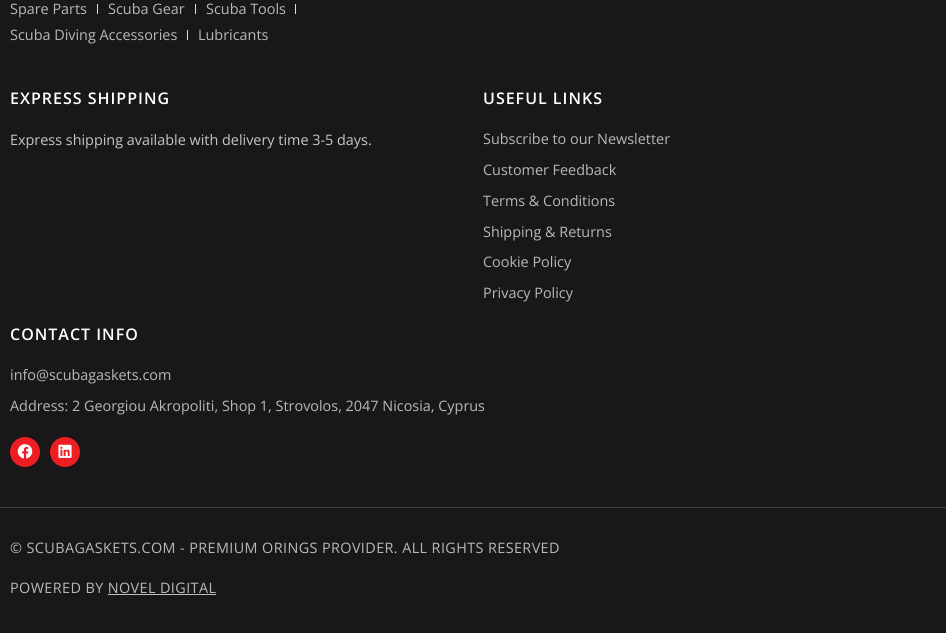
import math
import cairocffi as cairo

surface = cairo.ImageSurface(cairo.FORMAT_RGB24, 946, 633)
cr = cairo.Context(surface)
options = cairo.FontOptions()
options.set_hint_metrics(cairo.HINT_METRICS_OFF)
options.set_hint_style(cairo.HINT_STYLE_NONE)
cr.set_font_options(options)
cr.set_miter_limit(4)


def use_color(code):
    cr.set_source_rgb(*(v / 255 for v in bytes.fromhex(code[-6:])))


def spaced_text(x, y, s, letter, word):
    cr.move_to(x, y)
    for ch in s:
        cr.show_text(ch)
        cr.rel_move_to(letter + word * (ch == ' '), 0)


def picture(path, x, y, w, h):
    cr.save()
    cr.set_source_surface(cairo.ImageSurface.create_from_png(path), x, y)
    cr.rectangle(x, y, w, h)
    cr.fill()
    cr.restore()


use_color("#181818")
cr.paint()
cr.select_font_face("Open Sans")
cr.set_font_size(14.4)
use_color("#b8b8b8")
cr.move_to(10, 14)
cr.show_text("Spare Parts")
use_color("#dddddd")
cr.rectangle(97, 4, 1, 10)
cr.fill()
use_color("#b8b8b8")
cr.move_to(108, 14)
cr.show_text("Scuba Gear")
use_color("#dddddd")
cr.rectangle(195, 4, 1, 10)
cr.fill()
use_color("#b8b8b8")
cr.move_to(206, 14)
cr.show_text("Scuba Tools")
use_color("#dddddd")
cr.rectangle(295, 4, 1, 10)
cr.fill()
use_color("#b8b8b8")
cr.move_to(10, 40)
cr.show_text("Scuba Diving Accessories")
use_color("#dddddd")
cr.rectangle(187, 30, 1, 10)
cr.fill()
use_color("#b8b8b8")
cr.move_to(198, 40)
cr.show_text("Lubricants")
cr.select_font_face("Open Sans SemiBold")
cr.set_font_size(16)
use_color("#ffffff")
spaced_text(10, 104, "EXPRESS SHIPPING", 1, 0)
cr.select_font_face("Open Sans")
cr.set_font_size(14.4)
use_color("#c5c5c5")
cr.move_to(10, 145)
cr.show_text("Express shipping available with delivery time 3-5 days.")
cr.select_font_face("Open Sans SemiBold")
cr.set_font_size(16)
use_color("#ffffff")
spaced_text(483, 104, "USEFUL LINKS", 1, 0)
cr.select_font_face("Open Sans")
cr.set_font_size(14.4)
use_color("#b8b8b8")
cr.move_to(483, 144)
cr.show_text("Subscribe to our Newsletter")
cr.move_to(483, 175)
cr.show_text("Customer Feedback")
cr.move_to(483, 206)
cr.show_text("Terms & Conditions")
cr.move_to(483, 237)
cr.show_text("Shipping & Returns")
cr.move_to(483, 267)
cr.show_text("Cookie Policy")
cr.move_to(483, 298)
cr.show_text("Privacy Policy")
cr.select_font_face("Open Sans SemiBold")
cr.set_font_size(16)
use_color("#ffffff")
spaced_text(10, 340, "CONTACT INFO", 1, 0)
cr.select_font_face("Open Sans")
cr.set_font_size(14.4)
use_color("#b8b8b8")
cr.move_to(10, 380)
cr.show_text("info@scubagaskets.com")
cr.move_to(10, 411)
cr.show_text("Address: 2 Georgiou Akropoliti, Shop 1, Strovolos, 2047 Nicosia, Cyprus")
use_color("#ee1e23")
cr.new_path()
cr.arc(25, 452, 15, 0, 2 * math.pi)
cr.fill()
picture("img1.png", 17, 444, 16, 15)
cr.arc(65, 452, 15, 0, 2 * math.pi)
cr.fill()
picture("img2.png", 58, 444, 14, 14)
use_color("#3f3f3f")
cr.rectangle(0, 507, 946, 1)
cr.fill()
use_color("#b8b8b8")
spaced_text(10, 553, "© SCUBAGASKETS.COM - PREMIUM ORINGS PROVIDER. ALL RIGHTS RESERVED", 0.4, 0)
spaced_text(10, 593, "POWERED BY NOVEL DIGITAL", 0.4, 0)
use_color("#bdbdbd")
cr.rectangle(108, 594, 108, 1)
cr.fill()
surface.write_to_png("result.png")
